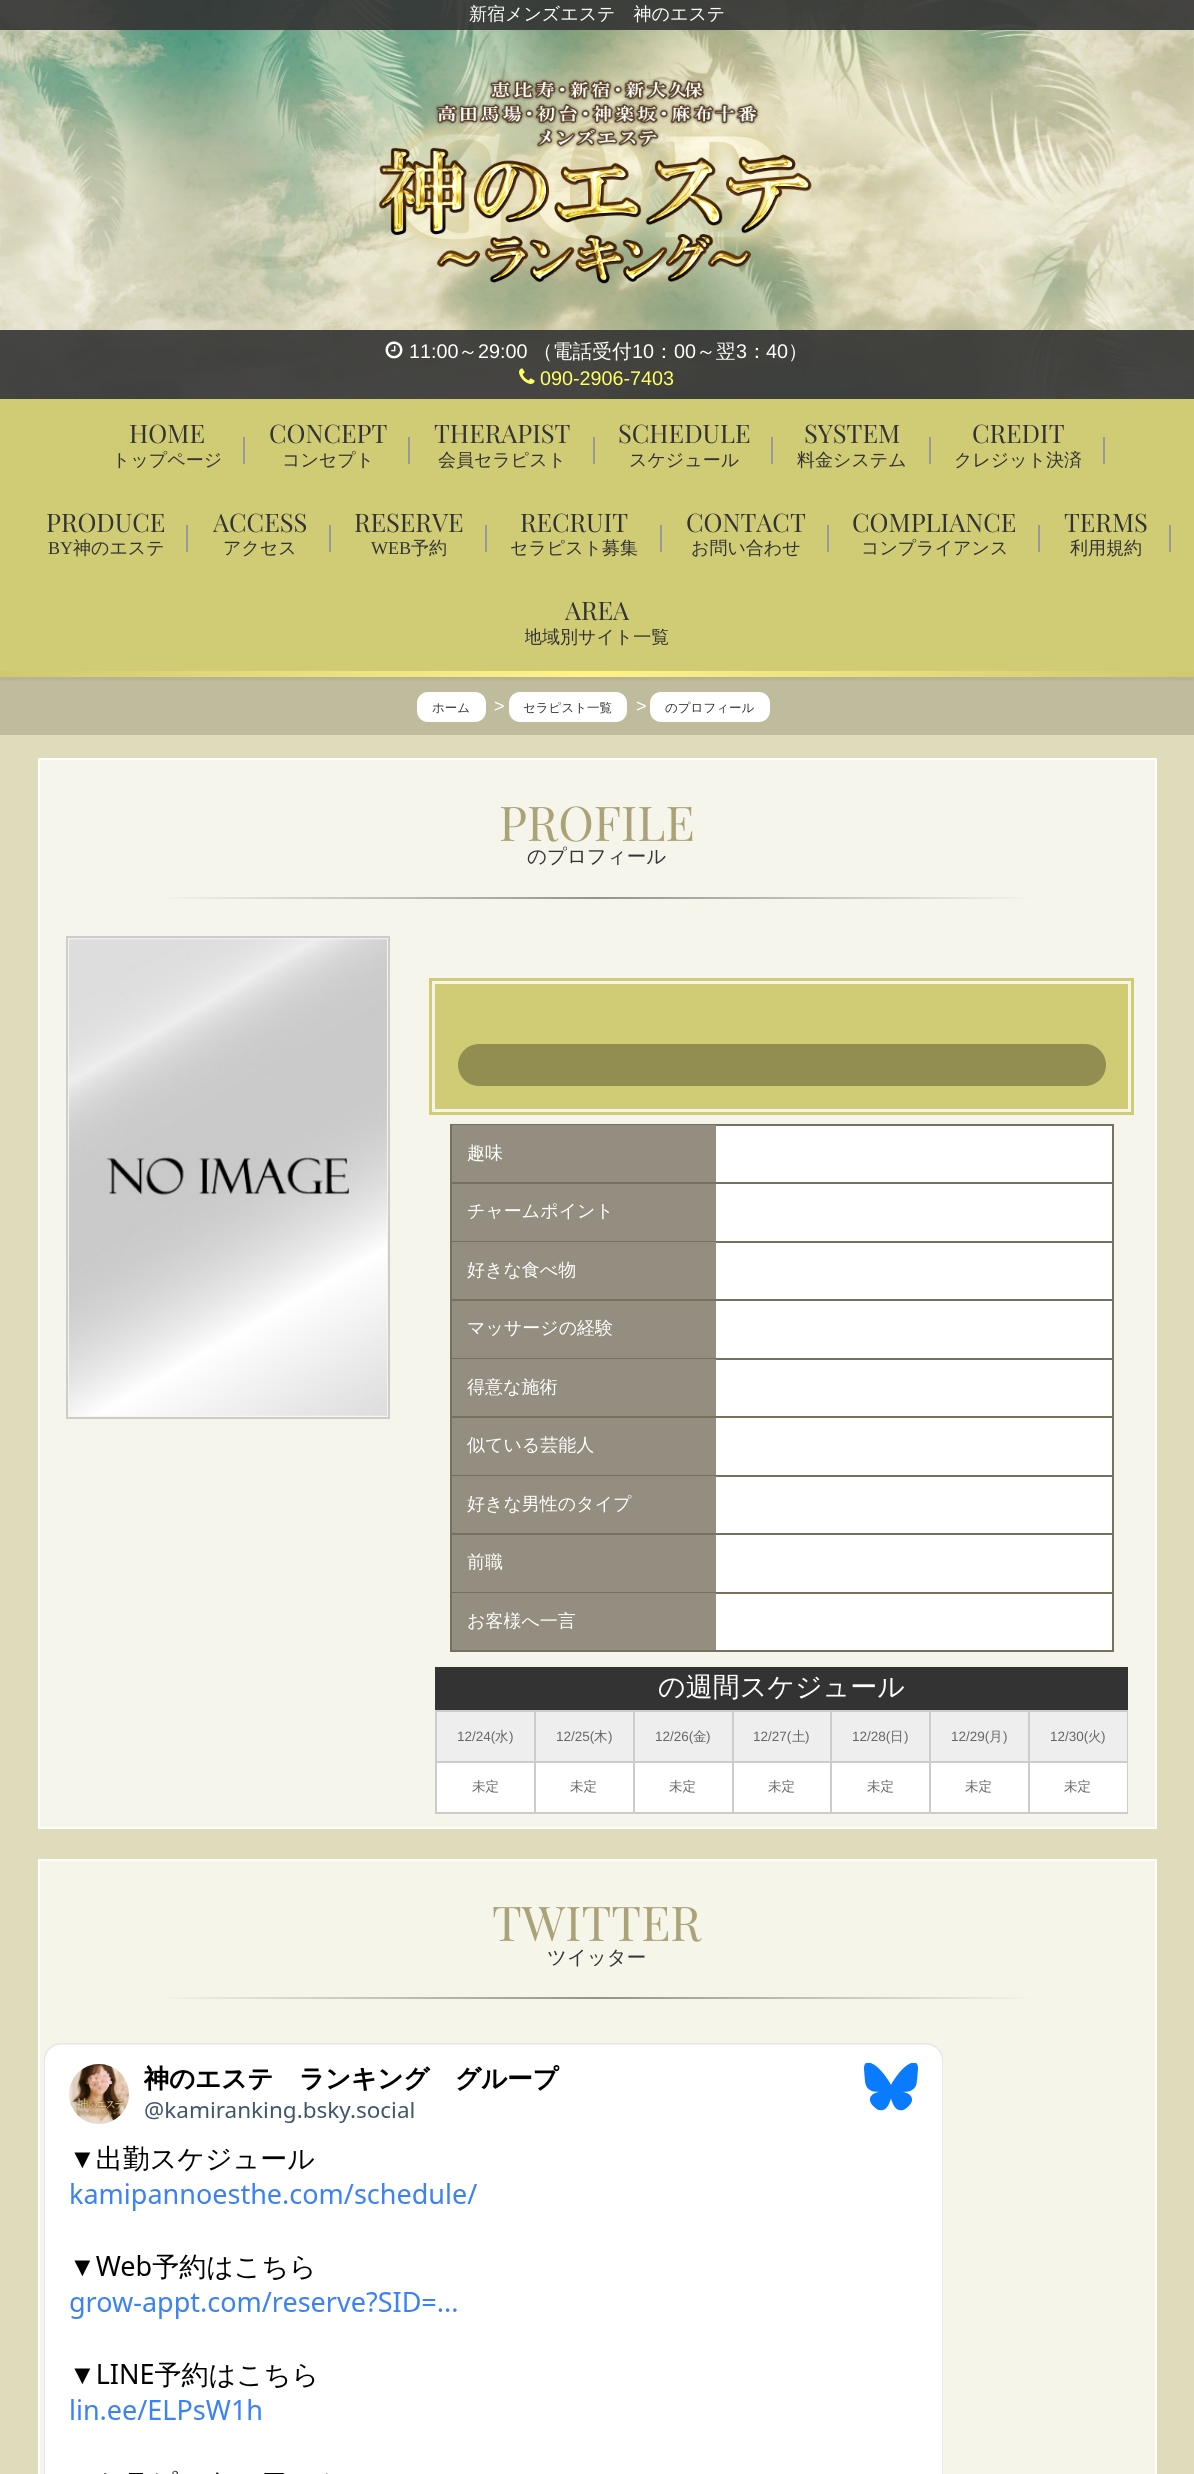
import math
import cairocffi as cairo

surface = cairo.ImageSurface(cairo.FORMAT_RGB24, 1194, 2474)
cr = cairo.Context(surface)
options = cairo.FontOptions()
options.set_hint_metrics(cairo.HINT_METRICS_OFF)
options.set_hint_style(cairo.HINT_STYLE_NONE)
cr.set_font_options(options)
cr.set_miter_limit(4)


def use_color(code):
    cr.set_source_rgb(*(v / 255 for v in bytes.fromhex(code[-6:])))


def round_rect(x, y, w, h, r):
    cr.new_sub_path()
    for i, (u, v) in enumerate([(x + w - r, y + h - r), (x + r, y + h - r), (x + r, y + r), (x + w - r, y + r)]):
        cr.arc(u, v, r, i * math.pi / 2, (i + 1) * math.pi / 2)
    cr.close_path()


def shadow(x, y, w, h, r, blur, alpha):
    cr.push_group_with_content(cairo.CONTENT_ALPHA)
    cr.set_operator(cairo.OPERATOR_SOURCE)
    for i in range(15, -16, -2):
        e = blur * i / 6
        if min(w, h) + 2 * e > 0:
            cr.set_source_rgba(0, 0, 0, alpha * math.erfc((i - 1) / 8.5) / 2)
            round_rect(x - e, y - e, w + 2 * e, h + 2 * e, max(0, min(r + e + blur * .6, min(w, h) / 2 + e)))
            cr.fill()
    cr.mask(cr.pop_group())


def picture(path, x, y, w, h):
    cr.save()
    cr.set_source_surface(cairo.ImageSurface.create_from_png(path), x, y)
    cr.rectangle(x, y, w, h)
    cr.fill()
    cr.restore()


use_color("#dedcbb")
cr.paint()
picture("img1.png", 0, 0, 1194, 399)
use_color("#bfbc9d")
cr.rectangle(0, 677, 1194, 58)
cr.fill()
cr.save()
cr.rectangle(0, 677, 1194, 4)
cr.clip()
use_color("#000000")
shadow(0, 2, 1194, 676, 0, 4, 0.1)
cr.restore()
gradient = cairo.LinearGradient(597, 0, 597, 677)
gradient.add_color_stop_rgba(0, 1, 1, 1, 0)
gradient.add_color_stop_rgba(1, 1, 1, 1, 0.5)
cr.set_source(gradient)
cr.rectangle(0, 29, 1194, 370)
cr.fill()
cr.set_source_rgba(0.2, 0.2, 0.2, 0.9)
cr.rectangle(0, 0, 1194, 30)
cr.fill()
cr.select_font_face("WenQuanYi Zen Hei Medium")
cr.set_font_size(18)
use_color("#ffffff")
cr.move_to(469, 20)
cr.show_text("新宿メンズエステ　神のエステ")
picture("img2.png", 378, 78, 434, 206)
cr.set_source_rgba(0.2, 0.2, 0.2, 0.9)
cr.rectangle(0, 330, 1194, 69)
cr.fill()
picture("img3.png", 385, 341, 18, 18)
cr.select_font_face("Liberation Sans")
cr.set_font_size(19.75)
use_color("#ffffff")
cr.move_to(409, 358)
cr.show_text("11:00")
cr.select_font_face("WenQuanYi Zen Hei Medium")
cr.move_to(458, 358)
cr.show_text("～")
cr.select_font_face("Liberation Sans")
cr.move_to(478, 358)
cr.show_text("29:00")
cr.select_font_face("WenQuanYi Zen Hei Medium")
cr.move_to(533, 358)
cr.show_text("（電話受付")
cr.select_font_face("Liberation Sans")
cr.move_to(632, 358)
cr.show_text("10")
cr.select_font_face("WenQuanYi Zen Hei Medium")
cr.move_to(654, 358)
cr.show_text("：")
cr.select_font_face("Liberation Sans")
cr.move_to(674, 358)
cr.show_text("00")
cr.select_font_face("WenQuanYi Zen Hei Medium")
cr.move_to(696, 358)
cr.show_text("～翌")
cr.select_font_face("Liberation Sans")
cr.move_to(736, 358)
cr.show_text("3")
cr.select_font_face("WenQuanYi Zen Hei Medium")
cr.move_to(747, 358)
cr.show_text("：")
cr.select_font_face("Liberation Sans")
cr.move_to(766, 358)
cr.show_text("40")
cr.select_font_face("WenQuanYi Zen Hei Medium")
cr.move_to(788, 358)
cr.show_text("）")
picture("img4.png", 519, 368, 16, 16)
cr.select_font_face("Liberation Sans")
use_color("#ffff66")
cr.move_to(540, 385)
cr.show_text("090-2906-7403")
use_color("#d0cb75")
cr.rectangle(0, 399, 1194, 272)
cr.fill()
cr.select_font_face("Playfair Display")
cr.set_font_size(25.5)
use_color("#333333")
cr.move_to(129, 443)
cr.show_text("HOME")
cr.select_font_face("WenQuanYi Zen Hei Medium")
cr.set_font_size(18)
cr.move_to(112, 466)
cr.show_text("トップページ")
use_color("#999999")
cr.rectangle(243, 437, 2, 27)
cr.fill()
cr.select_font_face("Playfair Display")
cr.set_font_size(25.5)
use_color("#333333")
cr.move_to(269, 443)
cr.show_text("CONCEPT")
cr.select_font_face("WenQuanYi Zen Hei Medium")
cr.set_font_size(18)
cr.move_to(282, 466)
cr.show_text("コンセプト")
use_color("#999999")
cr.rectangle(408, 437, 2, 27)
cr.fill()
cr.select_font_face("Playfair Display")
cr.set_font_size(25.5)
use_color("#333333")
cr.move_to(434, 443)
cr.show_text("THERAPIST")
cr.select_font_face("WenQuanYi Zen Hei Medium")
cr.set_font_size(18)
cr.move_to(438, 466)
cr.show_text("会員セラピスト")
use_color("#999999")
cr.rectangle(593, 437, 2, 27)
cr.fill()
cr.select_font_face("Playfair Display")
cr.set_font_size(25.5)
use_color("#333333")
cr.move_to(618, 443)
cr.show_text("SCHEDULE")
cr.select_font_face("WenQuanYi Zen Hei Medium")
cr.set_font_size(18)
cr.move_to(629, 466)
cr.show_text("スケジュール")
use_color("#999999")
cr.rectangle(771, 437, 2, 27)
cr.fill()
cr.select_font_face("Playfair Display")
cr.set_font_size(25.5)
use_color("#333333")
cr.move_to(804, 443)
cr.show_text("SYSTEM")
cr.select_font_face("WenQuanYi Zen Hei Medium")
cr.set_font_size(18)
cr.move_to(797, 466)
cr.show_text("料金システム")
use_color("#999999")
cr.rectangle(929, 437, 2, 27)
cr.fill()
cr.select_font_face("Playfair Display")
cr.set_font_size(25.5)
use_color("#333333")
cr.move_to(972, 443)
cr.show_text("CREDIT")
cr.select_font_face("WenQuanYi Zen Hei Medium")
cr.set_font_size(18)
cr.move_to(954, 466)
cr.show_text("クレジット決済")
use_color("#999999")
cr.rectangle(1103, 437, 2, 27)
cr.fill()
cr.select_font_face("Playfair Display")
cr.set_font_size(25.5)
use_color("#333333")
cr.move_to(46, 532)
cr.show_text("PRODUCE")
cr.select_font_face("Liberation Serif")
cr.set_font_size(18)
cr.move_to(48, 554)
cr.show_text("BY")
cr.select_font_face("WenQuanYi Zen Hei Medium")
cr.move_to(73, 554)
cr.show_text("神のエステ")
use_color("#999999")
cr.rectangle(186, 525, 2, 27)
cr.fill()
cr.select_font_face("Playfair Display")
cr.set_font_size(25.5)
use_color("#333333")
cr.move_to(213, 532)
cr.show_text("ACCESS")
cr.select_font_face("WenQuanYi Zen Hei Medium")
cr.set_font_size(18)
cr.move_to(223, 554)
cr.show_text("アクセス")
use_color("#999999")
cr.rectangle(329, 525, 2, 27)
cr.fill()
cr.select_font_face("Playfair Display")
cr.set_font_size(25.5)
use_color("#333333")
cr.move_to(354, 532)
cr.show_text("RESERVE")
cr.select_font_face("Liberation Serif")
cr.set_font_size(18)
cr.move_to(371, 554)
cr.show_text("WEB")
cr.select_font_face("WenQuanYi Zen Hei Medium")
cr.move_to(411, 554)
cr.show_text("予約")
use_color("#999999")
cr.rectangle(485, 525, 2, 27)
cr.fill()
cr.select_font_face("Playfair Display")
cr.set_font_size(25.5)
use_color("#333333")
cr.move_to(520, 532)
cr.show_text("RECRUIT")
cr.select_font_face("WenQuanYi Zen Hei Medium")
cr.set_font_size(18)
cr.move_to(510, 554)
cr.show_text("セラピスト募集")
use_color("#999999")
cr.rectangle(660, 525, 2, 27)
cr.fill()
cr.select_font_face("Playfair Display")
cr.set_font_size(25.5)
use_color("#333333")
cr.move_to(686, 532)
cr.show_text("CONTACT")
cr.select_font_face("WenQuanYi Zen Hei Medium")
cr.set_font_size(18)
cr.move_to(691, 554)
cr.show_text("お問い合わせ")
use_color("#999999")
cr.rectangle(827, 525, 2, 27)
cr.fill()
cr.select_font_face("Playfair Display")
cr.set_font_size(25.5)
use_color("#333333")
cr.move_to(852, 532)
cr.show_text("COMPLIANCE")
cr.select_font_face("WenQuanYi Zen Hei Medium")
cr.set_font_size(18)
cr.move_to(861, 554)
cr.show_text("コンプライアンス")
use_color("#999999")
cr.rectangle(1038, 525, 2, 27)
cr.fill()
cr.select_font_face("Playfair Display")
cr.set_font_size(25.5)
use_color("#333333")
cr.move_to(1064, 532)
cr.show_text("TERMS")
cr.select_font_face("WenQuanYi Zen Hei Medium")
cr.set_font_size(18)
cr.move_to(1070, 554)
cr.show_text("利用規約")
use_color("#999999")
cr.rectangle(1169, 525, 2, 27)
cr.fill()
cr.select_font_face("Playfair Display")
cr.set_font_size(25.5)
use_color("#333333")
cr.move_to(565, 620)
cr.show_text("AREA")
cr.save()
cr.rectangle(525, 596, 144, 54)
cr.clip()
cr.select_font_face("WenQuanYi Zen Hei Medium")
cr.set_font_size(18)
cr.move_to(524, 643)
cr.show_text("地域別サイト一覧")
cr.restore()
gradient = cairo.LinearGradient(297, 374, 897, 974)
gradient.add_color_stop_rgba(0, 0.808, 0.784, 0.435, 1)
gradient.add_color_stop_rgba(0.49, 1, 0.953, 0.537, 1)
gradient.add_color_stop_rgba(1, 0.808, 0.784, 0.435, 1)
cr.set_source(gradient)
cr.rectangle(0, 671, 1194, 6)
cr.fill()
use_color("#ffffff")
round_rect(417, 692, 69, 30, 11)
cr.fill()
cr.select_font_face("WenQuanYi Zen Hei Medium")
cr.set_font_size(12.5)
use_color("#333333")
cr.move_to(432, 712)
cr.show_text("ホーム")
cr.select_font_face("Liberation Sans")
cr.set_font_size(18)
use_color("#ffffff")
cr.move_to(494, 712)
cr.show_text(">")
round_rect(509, 692, 118, 30, 11)
cr.fill()
cr.select_font_face("WenQuanYi Zen Hei Medium")
cr.set_font_size(12.5)
use_color("#333333")
cr.move_to(523, 712)
cr.show_text("セラピスト一覧")
cr.select_font_face("Liberation Sans")
cr.set_font_size(18)
use_color("#ffffff")
cr.move_to(636, 712)
cr.show_text(">")
round_rect(650, 692, 120, 30, 11)
cr.fill()
cr.select_font_face("WenQuanYi Zen Hei Medium")
cr.set_font_size(12.5)
use_color("#333333")
cr.move_to(665, 712)
cr.show_text("のプロフィール")
use_color("#f6f5eb")
cr.rectangle(39, 759, 1117, 1069)
cr.fill_preserve()
use_color("#ffffff")
cr.stroke()
cr.select_font_face("Playfair Display")
cr.set_font_size(48)
use_color("#aba378")
cr.move_to(499, 841)
cr.show_text("PROFILE")
cr.select_font_face("WenQuanYi Zen Hei Medium")
cr.set_font_size(19.5)
use_color("#333333")
cr.move_to(527, 863)
cr.show_text("のプロフィール")
gradient = cairo.LinearGradient(44, 898, 1151, 898)
gradient.add_color_stop_rgba(0, 0.965, 0.961, 0.922, 1)
gradient.add_color_stop_rgba(0.1, 0.965, 0.961, 0.922, 1)
gradient.add_color_stop_rgba(0.5, 0.58, 0.576, 0.553, 1)
gradient.add_color_stop_rgba(0.9, 0.965, 0.961, 0.922, 1)
gradient.add_color_stop_rgba(1, 0.965, 0.961, 0.922, 1)
cr.set_source(gradient)
cr.rectangle(166, 897, 863, 2)
cr.fill()
cr.rectangle(67, 937, 322, 481)
use_color("#cccccc")
cr.stroke()
picture("img5.png", 69, 938, 318, 478)
use_color("#d0cb75")
cr.rectangle(435, 984, 693, 125)
cr.fill()
use_color("#928e52")
round_rect(458, 1044, 648, 42, 21)
cr.fill()
cr.rectangle(430.5, 979.5, 702, 134)
use_color("#d0cb75")
cr.set_line_width(3)
cr.stroke()
use_color("#ffffff")
cr.rectangle(716, 1126, 396, 524)
cr.fill()
use_color("#76705d")
cr.rectangle(450, 1124, 663, 2)
cr.fill()
cr.rectangle(1112, 1124, 2, 528)
cr.fill()
cr.rectangle(450, 1124, 2, 528)
cr.fill()
use_color("#938e7f")
cr.rectangle(452, 1125, 264, 57)
cr.fill()
use_color("#76705d")
cr.rectangle(452, 1182, 660, 2)
cr.fill()
cr.set_font_size(18)
use_color("#ffffff")
cr.move_to(467, 1159)
cr.show_text("趣味")
use_color("#938e7f")
cr.rectangle(452, 1184, 264, 57)
cr.fill()
use_color("#76705d")
cr.rectangle(452, 1241, 264, 1)
cr.fill()
use_color("#ffffff")
cr.move_to(467, 1217)
cr.show_text("チャームポイント")
use_color("#76705d")
cr.rectangle(716, 1241, 396, 2)
cr.fill()
use_color("#938e7f")
cr.rectangle(452, 1242, 264, 57)
cr.fill()
use_color("#76705d")
cr.rectangle(452, 1299, 660, 2)
cr.fill()
use_color("#ffffff")
cr.move_to(467, 1276)
cr.show_text("好きな食べ物")
use_color("#938e7f")
cr.rectangle(452, 1301, 264, 57)
cr.fill()
use_color("#76705d")
cr.rectangle(452, 1358, 264, 1)
cr.fill()
use_color("#ffffff")
cr.move_to(467, 1334)
cr.show_text("マッサージの経験")
use_color("#76705d")
cr.rectangle(716, 1358, 396, 2)
cr.fill()
use_color("#938e7f")
cr.rectangle(452, 1359, 264, 57)
cr.fill()
use_color("#76705d")
cr.rectangle(452, 1416, 660, 2)
cr.fill()
use_color("#ffffff")
cr.move_to(467, 1393)
cr.show_text("得意な施術")
use_color("#938e7f")
cr.rectangle(452, 1418, 264, 57)
cr.fill()
use_color("#76705d")
cr.rectangle(452, 1475, 264, 1)
cr.fill()
use_color("#ffffff")
cr.move_to(467, 1451)
cr.show_text("似ている芸能人")
use_color("#76705d")
cr.rectangle(716, 1475, 396, 2)
cr.fill()
use_color("#938e7f")
cr.rectangle(452, 1476, 264, 57)
cr.fill()
use_color("#76705d")
cr.rectangle(452, 1533, 660, 2)
cr.fill()
use_color("#ffffff")
cr.move_to(467, 1510)
cr.show_text("好きな男性のタイプ")
use_color("#938e7f")
cr.rectangle(452, 1535, 264, 57)
cr.fill()
use_color("#76705d")
cr.rectangle(452, 1592, 264, 1)
cr.fill()
use_color("#ffffff")
cr.move_to(467, 1568)
cr.show_text("前職")
use_color("#76705d")
cr.rectangle(716, 1592, 396, 2)
cr.fill()
use_color("#938e7f")
cr.rectangle(452, 1593, 264, 57)
cr.fill()
use_color("#76705d")
cr.rectangle(452, 1650, 660, 2)
cr.fill()
use_color("#ffffff")
cr.move_to(467, 1627)
cr.show_text("お客様へ一言")
use_color("#333333")
cr.rectangle(435, 1667, 693, 43)
cr.fill()
cr.set_font_size(27)
use_color("#ffffff")
cr.move_to(658, 1696)
cr.show_text("の週間スケジュール")
cr.rectangle(437, 1763, 690, 49)
cr.fill()
use_color("#eeeeee")
cr.rectangle(437, 1712, 97, 49)
cr.fill()
use_color("#cccccc")
cr.rectangle(1028, 1710, 100, 2)
cr.fill()
cr.rectangle(1028, 1761, 100, 2)
cr.fill()
cr.rectangle(1127, 1761, 1, 53)
cr.fill()
cr.rectangle(1028, 1812, 100, 2)
cr.fill()
cr.rectangle(1028, 1761, 2, 53)
cr.fill()
cr.rectangle(929, 1761, 100, 2)
cr.fill()
cr.rectangle(1028, 1710, 2, 53)
cr.fill()
cr.rectangle(929, 1710, 100, 2)
cr.fill()
cr.rectangle(929, 1812, 100, 2)
cr.fill()
cr.rectangle(929, 1761, 2, 53)
cr.fill()
cr.rectangle(830, 1761, 100, 2)
cr.fill()
cr.rectangle(929, 1710, 2, 53)
cr.fill()
cr.rectangle(830, 1710, 100, 2)
cr.fill()
cr.rectangle(830, 1812, 100, 2)
cr.fill()
cr.rectangle(830, 1761, 2, 53)
cr.fill()
cr.rectangle(732, 1761, 99, 2)
cr.fill()
cr.rectangle(830, 1710, 2, 53)
cr.fill()
cr.rectangle(732, 1710, 99, 2)
cr.fill()
cr.rectangle(732, 1812, 99, 2)
cr.fill()
cr.rectangle(732, 1761, 2, 53)
cr.fill()
cr.rectangle(633, 1761, 101, 2)
cr.fill()
cr.rectangle(732, 1710, 2, 53)
cr.fill()
cr.rectangle(633, 1710, 101, 2)
cr.fill()
cr.rectangle(633, 1812, 101, 2)
cr.fill()
cr.rectangle(633, 1761, 2, 53)
cr.fill()
cr.rectangle(534, 1761, 101, 2)
cr.fill()
cr.rectangle(633, 1710, 2, 53)
cr.fill()
cr.rectangle(534, 1710, 101, 2)
cr.fill()
cr.rectangle(534, 1812, 101, 2)
cr.fill()
cr.rectangle(534, 1761, 2, 53)
cr.fill()
cr.rectangle(435, 1761, 101, 2)
cr.fill()
cr.rectangle(534, 1710, 2, 53)
cr.fill()
cr.rectangle(435, 1710, 101, 2)
cr.fill()
cr.rectangle(435, 1812, 101, 2)
cr.fill()
cr.rectangle(435, 1761, 2, 53)
cr.fill()
cr.rectangle(435, 1710, 2, 53)
cr.fill()
cr.select_font_face("Liberation Sans")
cr.set_font_size(13.5)
use_color("#666666")
cr.move_to(457, 1741)
cr.show_text("12/24(")
cr.select_font_face("WenQuanYi Zen Hei Medium")
cr.move_to(495, 1741)
cr.show_text("水")
cr.select_font_face("Liberation Sans")
cr.move_to(509, 1741)
cr.show_text(")")
use_color("#eeeeee")
cr.rectangle(536, 1712, 97, 49)
cr.fill()
use_color("#666666")
cr.move_to(556, 1741)
cr.show_text("12/25(")
cr.select_font_face("WenQuanYi Zen Hei Medium")
cr.move_to(594, 1741)
cr.show_text("木")
cr.select_font_face("Liberation Sans")
cr.move_to(608, 1741)
cr.show_text(")")
use_color("#eeeeee")
cr.rectangle(635, 1712, 97, 49)
cr.fill()
use_color("#666666")
cr.move_to(655, 1741)
cr.show_text("12/26(")
cr.select_font_face("WenQuanYi Zen Hei Medium")
cr.move_to(693, 1741)
cr.show_text("金")
cr.select_font_face("Liberation Sans")
cr.move_to(706, 1741)
cr.show_text(")")
use_color("#eeeeee")
cr.rectangle(734, 1712, 96, 49)
cr.fill()
use_color("#666666")
cr.move_to(753, 1741)
cr.show_text("12/27(")
cr.select_font_face("WenQuanYi Zen Hei Medium")
cr.move_to(792, 1741)
cr.show_text("土")
cr.select_font_face("Liberation Sans")
cr.move_to(805, 1741)
cr.show_text(")")
use_color("#eeeeee")
cr.rectangle(832, 1712, 97, 49)
cr.fill()
use_color("#666666")
cr.move_to(852, 1741)
cr.show_text("12/28(")
cr.select_font_face("WenQuanYi Zen Hei Medium")
cr.move_to(890, 1741)
cr.show_text("日")
cr.select_font_face("Liberation Sans")
cr.move_to(904, 1741)
cr.show_text(")")
use_color("#eeeeee")
cr.rectangle(931, 1712, 97, 49)
cr.fill()
use_color("#666666")
cr.move_to(951, 1741)
cr.show_text("12/29(")
cr.select_font_face("WenQuanYi Zen Hei Medium")
cr.move_to(989, 1741)
cr.show_text("月")
cr.select_font_face("Liberation Sans")
cr.move_to(1003, 1741)
cr.show_text(")")
use_color("#eeeeee")
cr.rectangle(1030, 1712, 97, 49)
cr.fill()
use_color("#cccccc")
cr.rectangle(1127, 1710, 1, 53)
cr.fill()
use_color("#666666")
cr.move_to(1050, 1741)
cr.show_text("12/30(")
cr.select_font_face("WenQuanYi Zen Hei Medium")
cr.move_to(1088, 1741)
cr.show_text("火")
cr.select_font_face("Liberation Sans")
cr.move_to(1101, 1741)
cr.show_text(")")
cr.select_font_face("WenQuanYi Zen Hei Medium")
cr.move_to(472, 1791)
cr.show_text("未定")
cr.move_to(570, 1791)
cr.show_text("未定")
cr.move_to(669, 1791)
cr.show_text("未定")
cr.move_to(768, 1791)
cr.show_text("未定")
cr.move_to(867, 1791)
cr.show_text("未定")
cr.move_to(965, 1791)
cr.show_text("未定")
cr.move_to(1064, 1791)
cr.show_text("未定")
use_color("#f6f5ea")
cr.rectangle(39, 1860, 1117, 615)
cr.fill_preserve()
use_color("#ffffff")
cr.set_line_width(2)
cr.stroke()
cr.select_font_face("Playfair Display")
cr.set_font_size(48)
use_color("#aba378")
cr.move_to(492, 1941)
cr.show_text("TWITTER")
cr.select_font_face("WenQuanYi Zen Hei Medium")
cr.set_font_size(19.5)
use_color("#333333")
cr.move_to(547, 1964)
cr.show_text("ツイッター")
gradient = cairo.LinearGradient(44, 1997, 1151, 1997)
gradient.add_color_stop_rgba(0, 0.965, 0.961, 0.918, 1)
gradient.add_color_stop_rgba(0.1, 0.965, 0.961, 0.918, 1)
gradient.add_color_stop_rgba(0.5, 0.58, 0.576, 0.549, 1)
gradient.add_color_stop_rgba(0.9, 0.965, 0.961, 0.918, 1)
gradient.add_color_stop_rgba(1, 0.965, 0.961, 0.918, 1)
cr.set_source(gradient)
cr.rectangle(166, 1997, 863, 2)
cr.fill()
picture("img6.png", 44, 2043, 899, 431)
surface.write_to_png("result.png")
